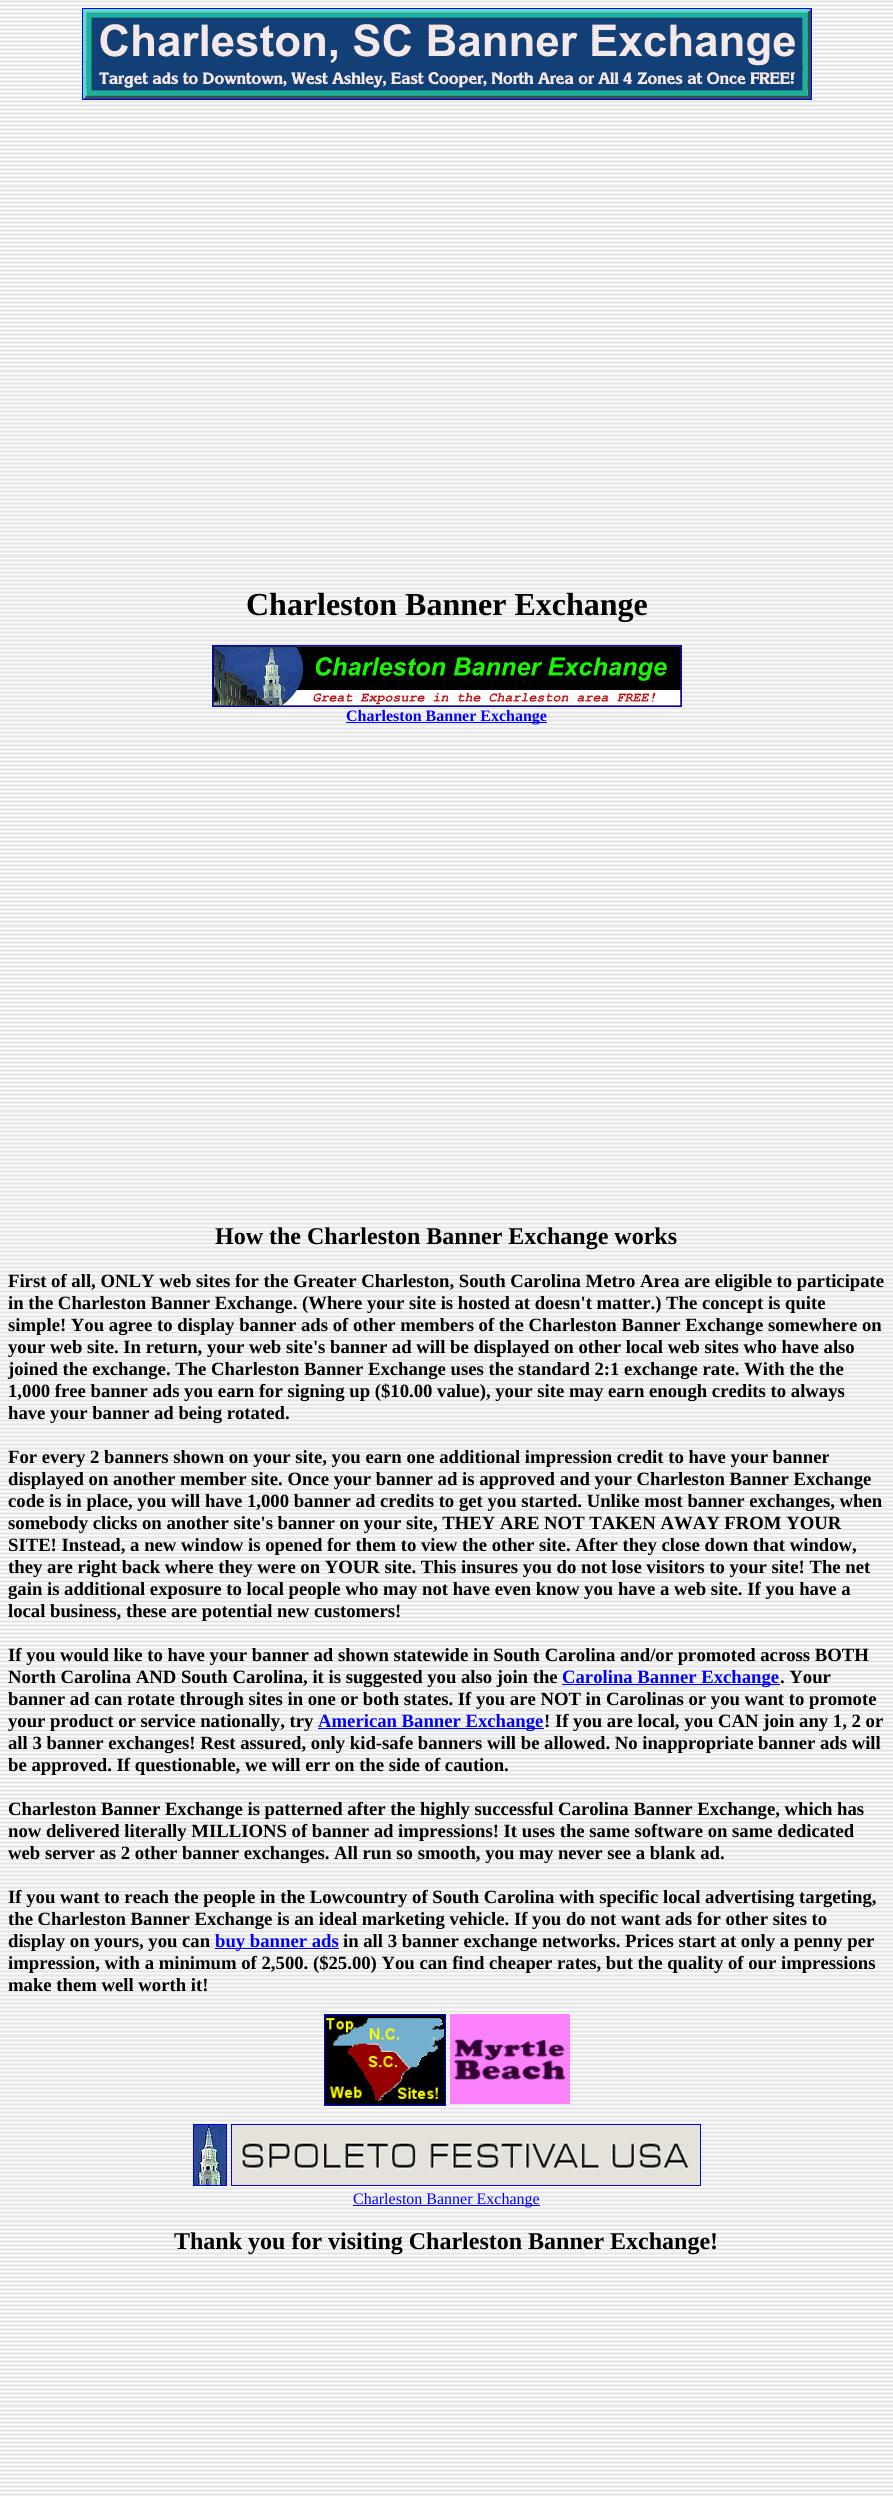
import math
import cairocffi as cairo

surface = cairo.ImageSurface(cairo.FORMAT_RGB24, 893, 2497)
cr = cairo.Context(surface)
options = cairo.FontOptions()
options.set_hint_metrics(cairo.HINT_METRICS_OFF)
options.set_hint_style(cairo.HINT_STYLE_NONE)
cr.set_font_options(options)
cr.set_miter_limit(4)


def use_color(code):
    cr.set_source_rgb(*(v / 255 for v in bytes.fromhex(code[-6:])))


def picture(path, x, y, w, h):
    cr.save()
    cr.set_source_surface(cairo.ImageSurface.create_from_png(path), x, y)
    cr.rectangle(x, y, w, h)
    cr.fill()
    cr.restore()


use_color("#ffffff")
cr.paint()
picture("img1.png", 0, 0, 893, 2496)
cr.rectangle(82.5, 8.5, 729, 91)
use_color("#0000ff")
cr.set_line_width(1)
cr.stroke()
picture("img2.png", 83, 9, 728, 90)
cr.select_font_face("Liberation Serif", cairo.FONT_SLANT_NORMAL, cairo.FONT_WEIGHT_BOLD)
cr.set_font_size(32)
use_color("#000000")
cr.move_to(246, 615)
cr.show_text("Charleston Banner Exchange")
cr.rectangle(212.5, 645.5, 469, 61)
use_color("#0000ff")
cr.stroke()
picture("img3.png", 213, 646, 468, 60)
cr.rectangle(346, 722, 201, 1)
cr.fill()
cr.set_font_size(16)
cr.move_to(346, 721)
cr.show_text("Charleston Banner Exchange")
cr.set_font_size(24)
use_color("#000000")
cr.move_to(215, 1244)
cr.show_text("How the Charleston Banner Exchange works")
cr.set_font_size(18.7)
cr.move_to(8, 1287)
cr.show_text("First of all, ONLY web sites for the Greater Charleston, South Carolina Metro Area are eligible to participate")
cr.move_to(8, 1309)
cr.show_text("in the Charleston Banner Exchange. (Where your site is hosted at doesn't matter.) The concept is quite")
cr.move_to(8, 1331)
cr.show_text("simple! You agree to display banner ads of other members of the Charleston Banner Exchange somewhere on")
cr.move_to(8, 1353)
cr.show_text("your web site. In return, your web site's banner ad will be displayed on other local web sites who have also")
cr.move_to(8, 1375)
cr.show_text("joined the exchange. The Charleston Banner Exchange uses the standard 2:1 exchange rate. With the the")
cr.move_to(8, 1397)
cr.show_text("1,000 free banner ads you earn for signing up ($10.00 value), your site may earn enough credits to always")
cr.move_to(8, 1419)
cr.show_text("have your banner ad being rotated.")
cr.move_to(8, 1463)
cr.show_text("For every 2 banners shown on your site, you earn one additional impression credit to have your banner")
cr.move_to(8, 1485)
cr.show_text("displayed on another member site. Once your banner ad is approved and your Charleston Banner Exchange")
cr.move_to(8, 1507)
cr.show_text("code is in place, you will have 1,000 banner ad credits to get you started. Unlike most banner exchanges, when")
cr.move_to(8, 1529)
cr.show_text("somebody clicks on another site's banner on your site, THEY ARE NOT TAKEN AWAY FROM YOUR")
cr.move_to(8, 1551)
cr.show_text("SITE! Instead, a new window is opened for them to view the other site. After they close down that window,")
cr.move_to(8, 1573)
cr.show_text("they are right back where they were on YOUR site. This insures you do not lose visitors to your site! The net")
cr.move_to(8, 1595)
cr.show_text("gain is additional exposure to local people who may not have even know you have a web site. If you have a")
cr.move_to(8, 1617)
cr.show_text("local business, these are potential new customers!")
cr.move_to(8, 1661)
cr.show_text("If you would like to have your banner ad shown statewide in South Carolina and/or promoted across BOTH")
cr.move_to(8, 1683)
cr.show_text("North Carolina AND South Carolina, it is suggested you also join the")
use_color("#0000ff")
cr.rectangle(562, 1684, 218, 1)
cr.fill()
cr.move_to(562, 1683)
cr.show_text("Carolina Banner Exchange")
use_color("#000000")
cr.move_to(780, 1683)
cr.show_text(". Your")
cr.move_to(8, 1705)
cr.show_text("banner ad can rotate through sites in one or both states. If you are NOT in Carolinas or you want to promote")
cr.move_to(8, 1727)
cr.show_text("your product or service nationally, try")
use_color("#0000ff")
cr.rectangle(318, 1728, 226, 1)
cr.fill()
cr.move_to(318, 1727)
cr.show_text("American Banner Exchange")
use_color("#000000")
cr.move_to(544, 1727)
cr.show_text("! If you are local, you CAN join any 1, 2 or")
cr.move_to(8, 1749)
cr.show_text("all 3 banner exchanges! Rest assured, only kid-safe banners will be allowed. No inappropriate banner ads will")
cr.move_to(8, 1771)
cr.show_text("be approved. If questionable, we will err on the side of caution.")
cr.move_to(8, 1815)
cr.show_text("Charleston Banner Exchange is patterned after the highly successful Carolina Banner Exchange, which has")
cr.move_to(8, 1837)
cr.show_text("now delivered literally MILLIONS of banner ad impressions! It uses the same software on same dedicated")
cr.move_to(8, 1859)
cr.show_text("web server as 2 other banner exchanges.")
cr.move_to(334, 1859)
cr.show_text("All run so smooth, you may never see a blank ad.")
cr.move_to(8, 1903)
cr.show_text("If you want to reach the people in the Lowcountry of South Carolina with specific local advertising targeting,")
cr.move_to(8, 1925)
cr.show_text("the Charleston Banner Exchange is an ideal marketing vehicle. If you do not want ads for other sites to")
cr.move_to(8, 1947)
cr.show_text("display on yours, you can")
use_color("#0000ff")
cr.rectangle(215, 1948, 124, 1)
cr.fill()
cr.move_to(215, 1947)
cr.show_text("buy banner ads")
use_color("#000000")
cr.move_to(343, 1947)
cr.show_text("in all 3 banner exchange networks. Prices start at only a penny per")
cr.move_to(8, 1969)
cr.show_text("impression, with a minimum of 2,500. ($25.00) You can find cheaper rates, but the quality of our impressions")
cr.move_to(8, 1991)
cr.show_text("make them well worth it!")
cr.rectangle(324.5, 2014.5, 121, 91)
use_color("#0000ff")
cr.stroke()
picture("img4.png", 450, 2014, 120, 90)
picture("img5.png", 325, 2015, 120, 90)
cr.rectangle(193.5, 2124.5, 33, 61)
cr.stroke()
cr.rectangle(231.5, 2124.5, 469, 61)
cr.stroke()
picture("img6.png", 194, 2125, 32, 60)
picture("img7.png", 232, 2125, 468, 60)
cr.rectangle(353, 2205, 187, 1)
cr.fill()
cr.select_font_face("Liberation Serif")
cr.set_font_size(16)
cr.move_to(353, 2204)
cr.show_text("Charleston Banner Exchange")
cr.select_font_face("Liberation Serif", cairo.FONT_SLANT_NORMAL, cairo.FONT_WEIGHT_BOLD)
cr.set_font_size(24)
use_color("#000000")
cr.move_to(174, 2249)
cr.show_text("Thank you for visiting Charleston Banner Exchange!")
surface.write_to_png("result.png")
